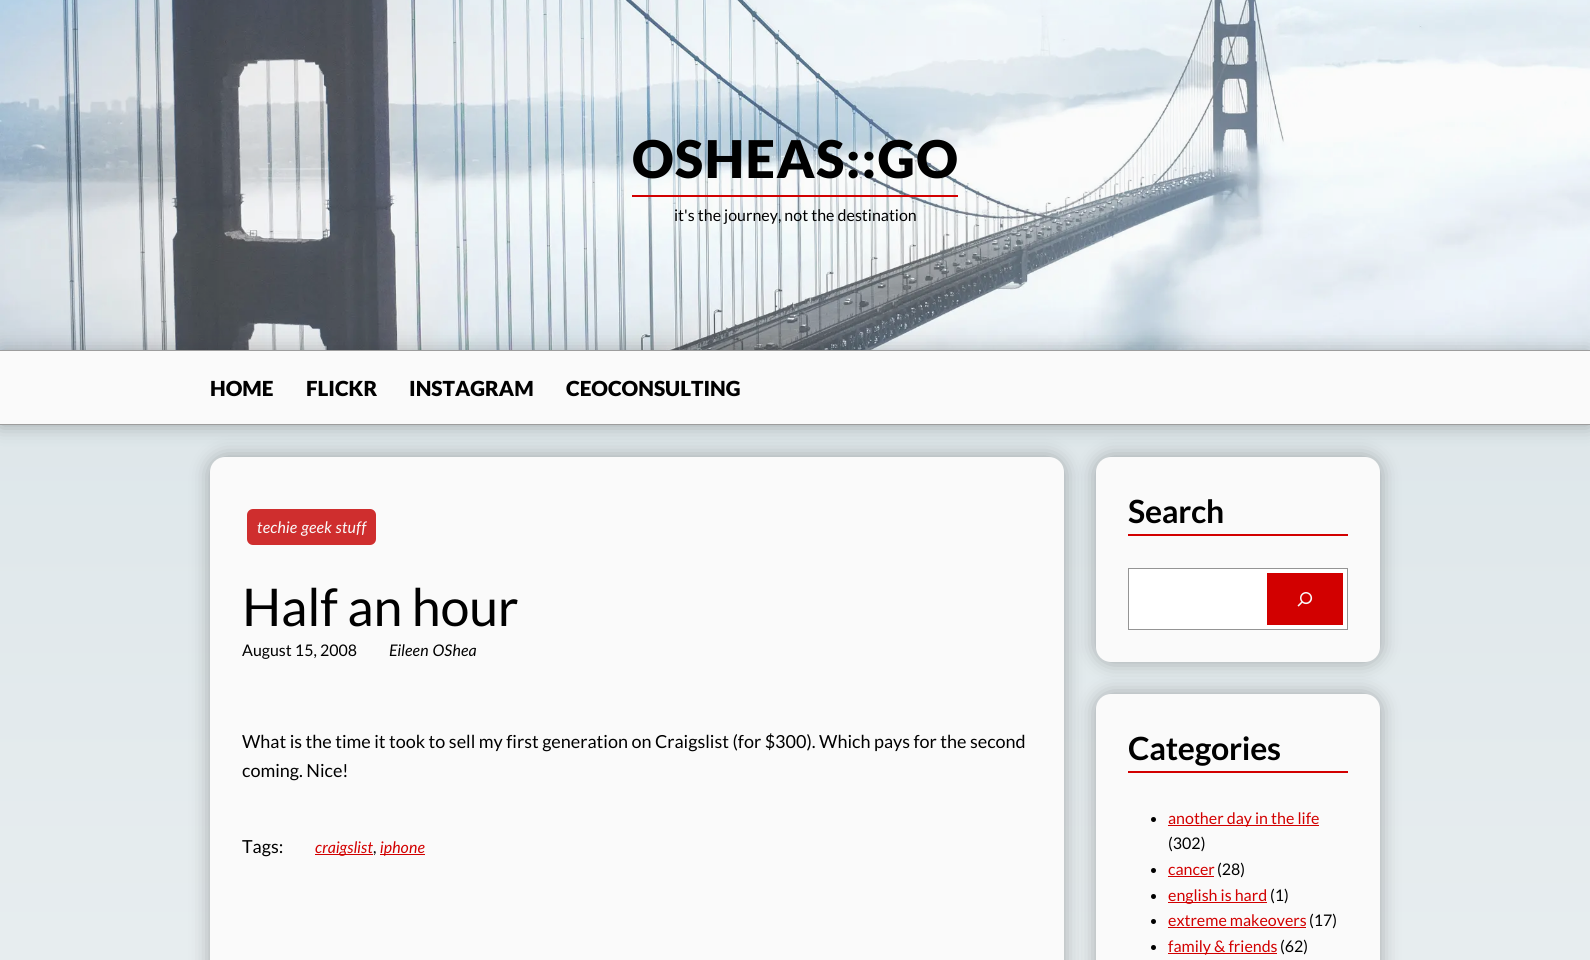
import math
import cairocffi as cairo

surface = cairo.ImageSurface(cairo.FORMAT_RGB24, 1590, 960)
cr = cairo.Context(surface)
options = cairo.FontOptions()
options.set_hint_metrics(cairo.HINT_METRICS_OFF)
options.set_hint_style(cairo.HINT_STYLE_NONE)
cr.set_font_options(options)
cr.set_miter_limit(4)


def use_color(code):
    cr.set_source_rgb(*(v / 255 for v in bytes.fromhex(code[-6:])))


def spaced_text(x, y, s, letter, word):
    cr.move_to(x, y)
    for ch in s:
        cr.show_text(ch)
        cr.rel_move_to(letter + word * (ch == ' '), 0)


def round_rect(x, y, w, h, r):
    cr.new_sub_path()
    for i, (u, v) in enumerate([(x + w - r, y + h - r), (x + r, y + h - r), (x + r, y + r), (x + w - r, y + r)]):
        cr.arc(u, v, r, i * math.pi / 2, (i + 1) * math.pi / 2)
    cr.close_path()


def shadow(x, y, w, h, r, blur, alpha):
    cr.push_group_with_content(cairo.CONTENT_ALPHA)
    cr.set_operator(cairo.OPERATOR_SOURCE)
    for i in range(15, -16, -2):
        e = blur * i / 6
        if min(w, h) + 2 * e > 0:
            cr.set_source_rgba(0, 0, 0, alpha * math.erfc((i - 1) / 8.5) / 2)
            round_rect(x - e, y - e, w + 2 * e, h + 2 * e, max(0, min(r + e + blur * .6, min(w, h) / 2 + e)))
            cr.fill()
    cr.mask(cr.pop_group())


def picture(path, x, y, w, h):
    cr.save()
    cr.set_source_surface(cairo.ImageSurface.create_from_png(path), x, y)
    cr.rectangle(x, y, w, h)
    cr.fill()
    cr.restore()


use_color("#ffffff")
cr.paint()
gradient = cairo.LinearGradient(795, 0, 795, 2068)
gradient.add_color_stop_rgba(0, 0.843, 0.886, 0.902, 1)
gradient.add_color_stop_rgba(1, 0.98, 0.98, 0.98, 1)
cr.set_source(gradient)
cr.rectangle(0, 425, 1590, 535)
cr.fill()
picture("img1.png", 0, 0, 1590, 350)
use_color("#000000")
shadow(0, 350, 1590, 75, 0, 10, 0.3)
cr.set_source_rgba(0.929, 0.929, 0.929, 0.2)
cr.rectangle(0, 0, 1590, 350)
cr.fill()
use_color("#d20000")
cr.rectangle(632, 195, 326, 2)
cr.fill()
cr.select_font_face("Lato Black")
cr.set_font_size(52)
use_color("#000000")
spaced_text(632, 178, "OSHEAS::GO", 1.5, 0)
cr.select_font_face("Lato")
cr.set_font_size(16)
cr.move_to(674, 221)
cr.show_text("it's the journey, not the destination")
use_color("#fafafa")
cr.rectangle(0, 351, 1590, 73)
cr.fill()
use_color("#9d9d9d")
cr.rectangle(0, 350, 1590, 1)
cr.fill()
cr.rectangle(0, 424, 1590, 1)
cr.fill()
cr.select_font_face("Lato Black")
cr.set_font_size(20.75)
use_color("#000000")
cr.move_to(210, 396)
cr.show_text("HOME")
cr.move_to(306, 396)
cr.show_text("FLICKR")
cr.move_to(409, 396)
cr.show_text("INSTAGRAM")
cr.move_to(566, 396)
cr.show_text("CEOCONSULTING")
use_color("#000000")
shadow(210, 457, 854, 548, 15, 10, 0.3)
use_color("#fafafa")
round_rect(210, 457, 854, 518, 15)
cr.fill()
use_color("#cf2e2e")
round_rect(247, 509, 129, 36, 6)
cr.fill()
cr.select_font_face("Lato", cairo.FONT_SLANT_ITALIC)
cr.set_font_size(16)
use_color("#fafafa")
cr.move_to(257, 533)
cr.show_text("techie geek stuff")
cr.select_font_face("Lato")
cr.set_font_size(52)
use_color("#000000")
spaced_text(242, 626, "Half an hour", -0.25, 0)
cr.set_font_size(16)
cr.move_to(242, 656)
cr.show_text("August 15, 2008")
cr.select_font_face("Lato", cairo.FONT_SLANT_ITALIC)
cr.move_to(389, 656)
cr.show_text("Eileen OShea")
cr.select_font_face("Lato")
cr.set_font_size(18)
cr.move_to(242, 748)
cr.show_text("What is the time it took to sell my first generation on Craigslist (for $300). Which pays for the second")
cr.move_to(242, 777)
cr.show_text("coming. Nice!")
cr.move_to(242, 853)
cr.show_text("Tags:")
use_color("#d20000")
cr.rectangle(315, 854, 58, 1)
cr.fill()
cr.select_font_face("Lato", cairo.FONT_SLANT_ITALIC)
cr.set_font_size(16)
cr.move_to(315, 853)
cr.show_text("craigslist")
cr.select_font_face("Lato")
use_color("#000000")
cr.move_to(373, 853)
cr.show_text(",")
use_color("#d20000")
cr.rectangle(380, 854, 45, 1)
cr.fill()
cr.select_font_face("Lato", cairo.FONT_SLANT_ITALIC)
cr.move_to(380, 853)
cr.show_text("iphone")
use_color("#000000")
shadow(1096, 457, 284, 205, 15, 10, 0.3)
use_color("#fafafa")
round_rect(1096, 457, 284, 205, 15)
cr.fill()
cr.select_font_face("Lato", cairo.FONT_SLANT_NORMAL, cairo.FONT_WEIGHT_BOLD)
cr.set_font_size(32)
use_color("#000000")
spaced_text(1128, 523, "Search", -0.25, 0)
use_color("#d20000")
cr.rectangle(1128, 534, 220, 2)
cr.fill()
use_color("#ffffff")
cr.rectangle(1128.5, 568.5, 219, 61)
cr.fill_preserve()
use_color("#949494")
cr.set_line_width(1)
cr.stroke()
use_color("#d20000")
cr.rectangle(1267, 573, 76, 52)
cr.fill()
picture("img2.png", 1297, 592, 16, 15)
use_color("#000000")
shadow(1096, 694, 284, 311, 15, 10, 0.3)
use_color("#fafafa")
round_rect(1096, 694, 284, 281, 15)
cr.fill()
use_color("#000000")
spaced_text(1128, 760, "Categories", -0.25, 0)
use_color("#d20000")
cr.rectangle(1128, 771, 220, 2)
cr.fill()
use_color("#000000")
cr.arc(1153.5, 819.5, 2.5, 0, 2 * math.pi)
cr.fill()
use_color("#d20000")
cr.rectangle(1168, 825, 151, 1)
cr.fill()
cr.select_font_face("Lato")
cr.set_font_size(16)
cr.move_to(1168, 824)
cr.show_text("another day in the life")
use_color("#000000")
cr.move_to(1168, 849)
cr.show_text("(302)")
cr.new_path()
cr.arc(1153.5, 870.5, 2.5, 0, 2 * math.pi)
cr.fill()
use_color("#d20000")
cr.move_to(1168, 875)
cr.show_text("cancer")
cr.rectangle(1168, 876, 46, 1)
cr.fill()
use_color("#000000")
cr.move_to(1217, 875)
cr.show_text("(28)")
cr.new_path()
cr.arc(1153.5, 896.5, 2.5, 0, 2 * math.pi)
cr.fill()
use_color("#d20000")
cr.rectangle(1168, 902, 99, 1)
cr.fill()
cr.move_to(1168, 901)
cr.show_text("english is hard")
use_color("#000000")
cr.move_to(1270, 901)
cr.show_text("(1)")
cr.new_path()
cr.arc(1153.5, 921.5, 2.5, 0, 2 * math.pi)
cr.fill()
use_color("#d20000")
cr.move_to(1168, 926)
cr.show_text("extreme makeovers")
cr.rectangle(1168, 927, 138, 1)
cr.fill()
use_color("#000000")
cr.move_to(1309, 926)
cr.show_text("(17)")
cr.new_path()
cr.arc(1153.5, 947.5, 2.5, 0, 2 * math.pi)
cr.fill()
use_color("#d20000")
cr.rectangle(1168, 953, 109, 1)
cr.fill()
cr.move_to(1168, 952)
cr.show_text("family & friends")
use_color("#000000")
cr.move_to(1280, 952)
cr.show_text("(62)")
surface.write_to_png("result.png")
